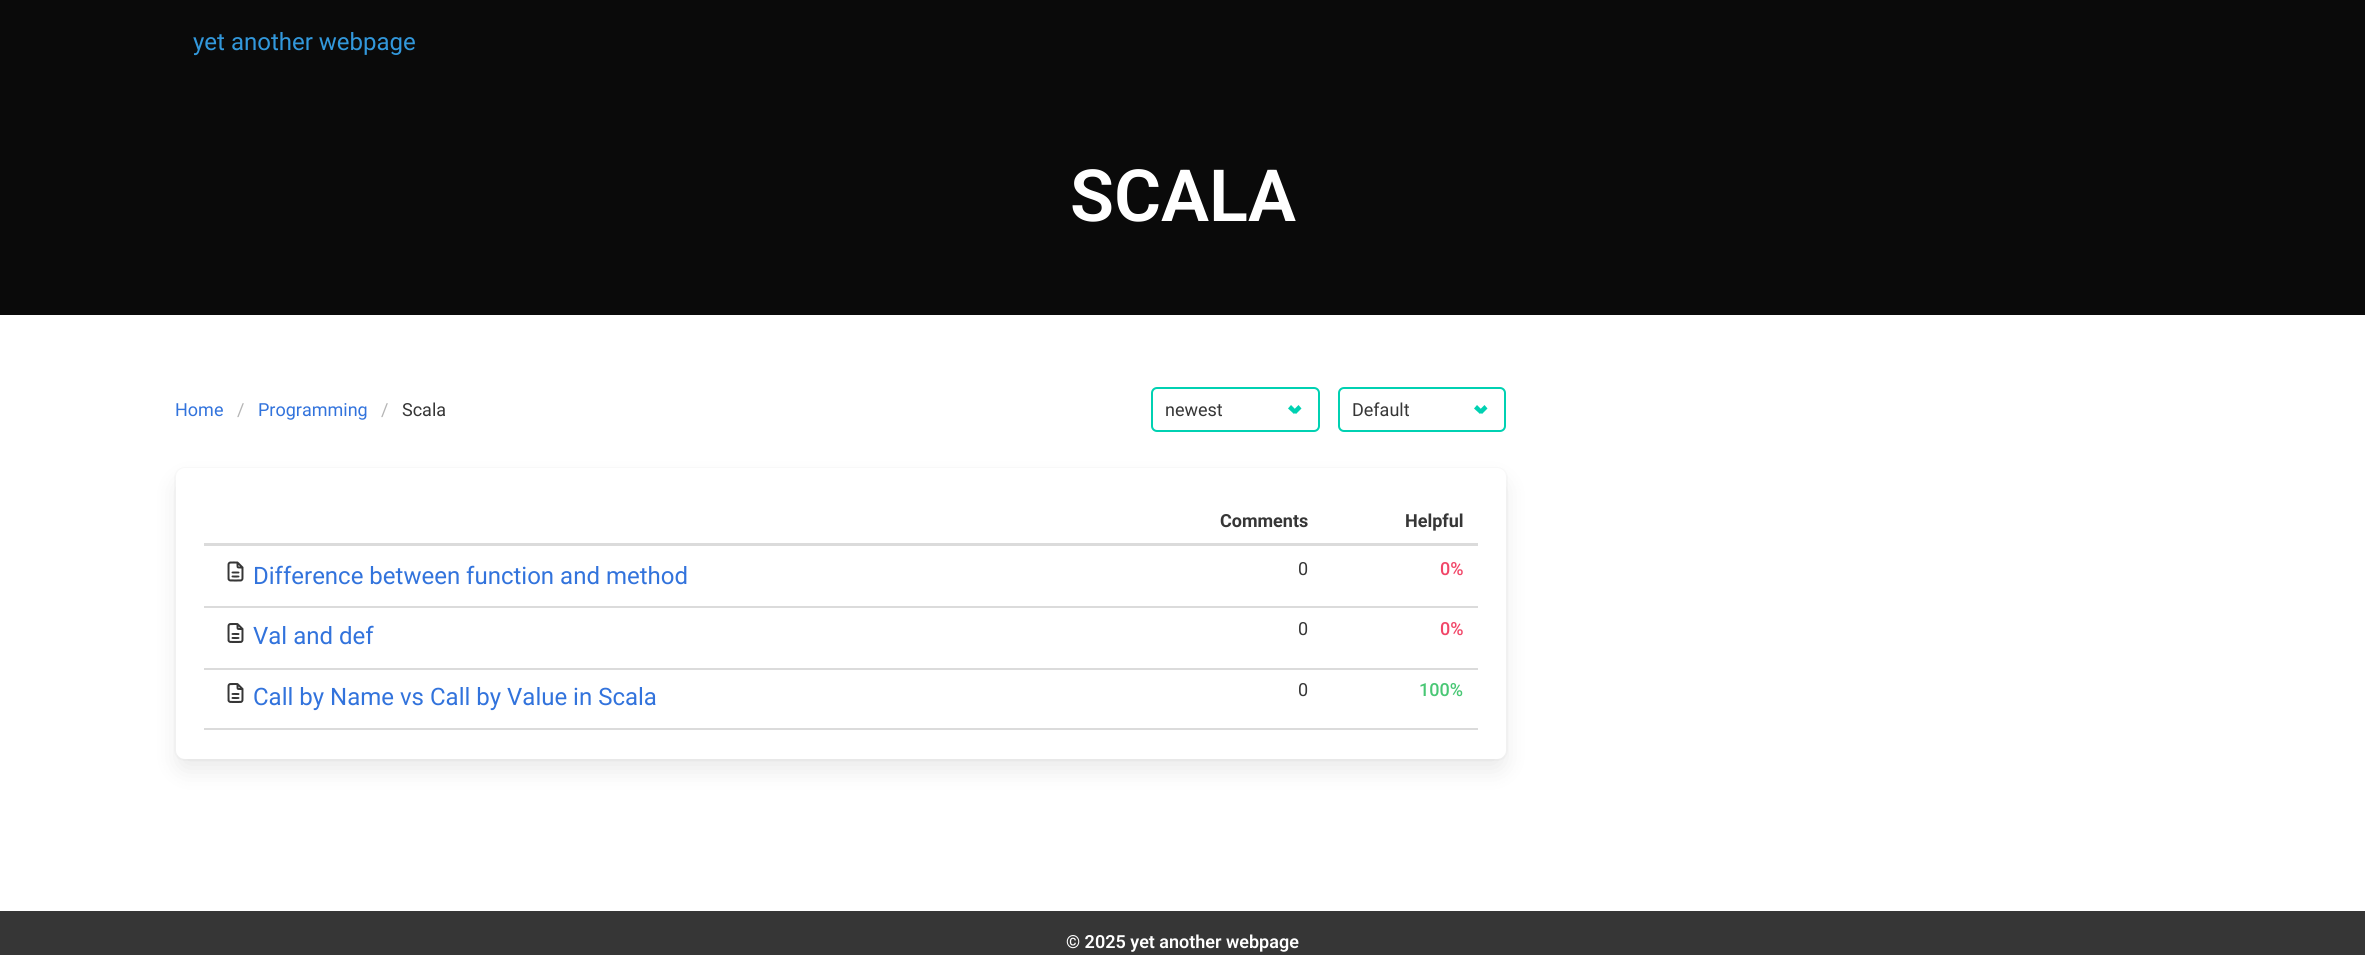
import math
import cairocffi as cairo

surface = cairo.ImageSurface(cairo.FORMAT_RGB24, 2365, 955)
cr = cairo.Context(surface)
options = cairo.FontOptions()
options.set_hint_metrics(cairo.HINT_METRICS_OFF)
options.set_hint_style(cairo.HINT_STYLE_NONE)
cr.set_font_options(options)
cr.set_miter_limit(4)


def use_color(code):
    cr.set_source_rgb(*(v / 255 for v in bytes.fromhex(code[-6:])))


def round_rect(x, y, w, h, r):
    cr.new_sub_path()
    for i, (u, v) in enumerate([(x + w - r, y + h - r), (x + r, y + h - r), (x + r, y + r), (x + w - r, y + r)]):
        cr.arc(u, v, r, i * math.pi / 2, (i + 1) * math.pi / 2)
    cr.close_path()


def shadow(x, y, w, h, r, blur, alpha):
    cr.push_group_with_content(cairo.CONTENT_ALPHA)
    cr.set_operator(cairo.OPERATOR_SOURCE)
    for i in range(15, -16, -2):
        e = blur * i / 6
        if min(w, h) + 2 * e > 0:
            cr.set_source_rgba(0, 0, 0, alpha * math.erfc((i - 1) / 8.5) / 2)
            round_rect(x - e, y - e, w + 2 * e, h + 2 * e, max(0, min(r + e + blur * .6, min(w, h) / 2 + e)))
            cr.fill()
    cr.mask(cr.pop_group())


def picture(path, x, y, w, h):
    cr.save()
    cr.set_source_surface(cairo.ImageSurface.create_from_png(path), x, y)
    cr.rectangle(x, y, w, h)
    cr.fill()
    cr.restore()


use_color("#ffffff")
cr.paint()
use_color("#0a0a0a")
cr.rectangle(0, 0, 2365, 315)
cr.fill()
cr.select_font_face("Roboto")
cr.set_font_size(24)
use_color("#3298dc")
cr.move_to(193, 50)
cr.show_text("yet another webpage")
cr.select_font_face("Roboto SemiBold")
cr.set_font_size(72)
use_color("#ffffff")
cr.move_to(1070, 221)
cr.show_text("SCALA")
cr.select_font_face("Roboto")
cr.set_font_size(18)
use_color("#3273dc")
cr.move_to(175, 416)
cr.show_text("Home")
use_color("#b5b5b5")
cr.move_to(237, 416)
cr.show_text("/")
use_color("#3273dc")
cr.move_to(258, 416)
cr.show_text("Programming")
use_color("#b5b5b5")
cr.move_to(381, 416)
cr.show_text("/")
use_color("#363636")
cr.move_to(402, 416)
cr.show_text("Scala")
round_rect(1152, 388, 167, 43, 5)
use_color("#00d1b2")
cr.stroke()
use_color("#363636")
cr.move_to(1165, 416)
cr.show_text("newest")
use_color("#00d1b2")
cr.new_path()
cr.move_to(1292.5, 411)
cr.line_to(1298.5, 405)
cr.line_to(1301.5, 408.5)
cr.line_to(1296, 414)
cr.close_path()
cr.fill()
cr.new_path()
cr.move_to(1288, 408.5)
cr.line_to(1291, 405)
cr.line_to(1297, 411)
cr.line_to(1294, 414)
cr.close_path()
cr.fill()
round_rect(1339, 388, 166, 43, 5)
cr.stroke()
use_color("#363636")
cr.move_to(1352, 416)
cr.show_text("Default")
use_color("#00d1b2")
cr.new_path()
cr.move_to(1478.5, 411)
cr.line_to(1484.5, 405)
cr.line_to(1487.5, 408.5)
cr.line_to(1482, 414)
cr.close_path()
cr.fill()
cr.new_path()
cr.move_to(1474, 408.5)
cr.line_to(1477, 405)
cr.line_to(1483, 411)
cr.line_to(1480, 414)
cr.close_path()
cr.fill()
round_rect(175, 468, 1332, 292, 10)
use_color("#fafafa")
cr.stroke()
use_color("#0a0a0a")
shadow(179, 483, 1324, 285, 6, 12, 0.1)
use_color("#ffffff")
round_rect(176, 468, 1330, 291, 9)
cr.fill()
cr.select_font_face("Roboto", cairo.FONT_SLANT_NORMAL, cairo.FONT_WEIGHT_BOLD)
use_color("#363636")
cr.move_to(1220, 527)
cr.show_text("Comments")
use_color("#dbdbdb")
cr.rectangle(204, 543, 1274, 3)
cr.fill()
use_color("#363636")
cr.move_to(1405, 527)
cr.show_text("Helpful")
picture("img1.png", 227, 561, 17, 21)
cr.select_font_face("Roboto")
cr.set_font_size(24)
use_color("#3273dc")
cr.move_to(253, 584)
cr.show_text("Difference between function and method")
cr.set_font_size(18)
use_color("#363636")
cr.move_to(1298, 575)
cr.show_text("0")
use_color("#dbdbdb")
cr.rectangle(204, 606, 1274, 2)
cr.fill()
cr.select_font_face("Roboto Medium")
use_color("#f14668")
cr.move_to(1440, 575)
cr.show_text("0%")
picture("img2.png", 227, 623, 17, 20)
cr.select_font_face("Roboto")
cr.set_font_size(24)
use_color("#3273dc")
cr.move_to(253, 644)
cr.show_text("Val and def")
cr.set_font_size(18)
use_color("#363636")
cr.move_to(1298, 635)
cr.show_text("0")
use_color("#dbdbdb")
cr.rectangle(204, 668, 1274, 2)
cr.fill()
cr.select_font_face("Roboto Medium")
use_color("#f14668")
cr.move_to(1440, 635)
cr.show_text("0%")
picture("img2.png", 227, 683, 17, 20)
cr.select_font_face("Roboto")
cr.set_font_size(24)
use_color("#3273dc")
cr.move_to(253, 705)
cr.show_text("Call by Name vs Call by Value in Scala")
cr.set_font_size(18)
use_color("#363636")
cr.move_to(1298, 696)
cr.show_text("0")
use_color("#dbdbdb")
cr.rectangle(204, 728, 1274, 2)
cr.fill()
cr.select_font_face("Roboto Medium")
use_color("#48c774")
cr.move_to(1419, 696)
cr.show_text("100%")
use_color("#363636")
cr.rectangle(0, 911, 2365, 44)
cr.fill()
cr.select_font_face("Roboto SemiBold")
use_color("#ffffff")
cr.move_to(1066, 948)
cr.show_text("© 2025 yet another webpage")
surface.write_to_png("result.png")
